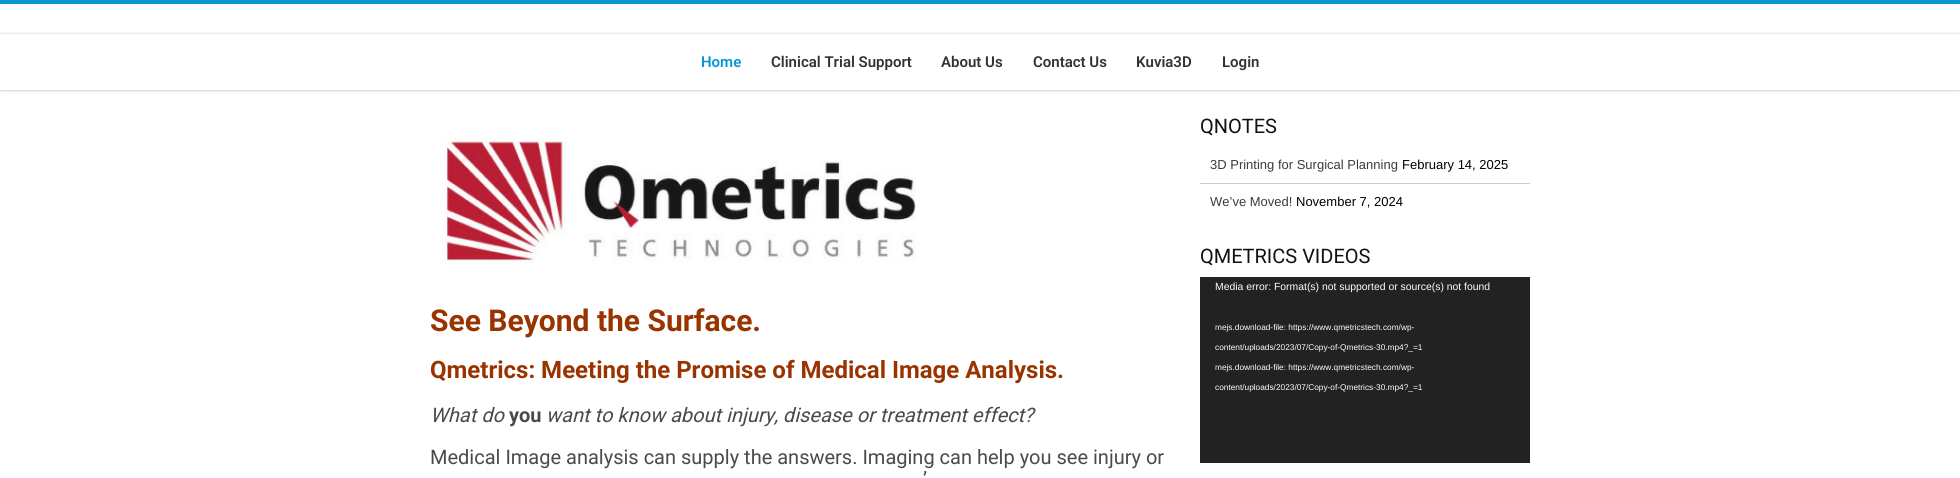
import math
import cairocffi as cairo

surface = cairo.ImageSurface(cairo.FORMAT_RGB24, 1960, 478)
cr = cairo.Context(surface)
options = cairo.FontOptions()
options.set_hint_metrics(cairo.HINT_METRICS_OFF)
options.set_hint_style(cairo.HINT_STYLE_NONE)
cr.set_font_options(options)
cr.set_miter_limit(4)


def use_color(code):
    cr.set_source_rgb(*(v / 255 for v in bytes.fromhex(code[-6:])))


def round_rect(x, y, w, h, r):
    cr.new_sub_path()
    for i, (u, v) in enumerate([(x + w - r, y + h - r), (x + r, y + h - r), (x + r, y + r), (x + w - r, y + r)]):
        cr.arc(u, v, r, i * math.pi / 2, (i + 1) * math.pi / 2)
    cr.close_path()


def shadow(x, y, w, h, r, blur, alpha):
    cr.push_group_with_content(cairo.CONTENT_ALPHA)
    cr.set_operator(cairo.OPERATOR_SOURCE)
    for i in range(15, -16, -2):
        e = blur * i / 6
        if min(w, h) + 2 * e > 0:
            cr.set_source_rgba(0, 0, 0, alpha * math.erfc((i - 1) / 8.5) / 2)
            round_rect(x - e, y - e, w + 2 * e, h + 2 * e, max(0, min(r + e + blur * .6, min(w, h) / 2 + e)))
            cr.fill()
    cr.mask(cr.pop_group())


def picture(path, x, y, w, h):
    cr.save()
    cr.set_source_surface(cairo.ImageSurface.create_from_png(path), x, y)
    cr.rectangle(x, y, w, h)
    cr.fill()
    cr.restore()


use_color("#ffffff")
cr.paint()
cr.save()
cr.rectangle(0, 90, 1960, 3)
cr.clip()
use_color("#cccccc")
shadow(0, 0, 1960, 90, 0, 1.5, 1)
cr.restore()
use_color("#0796d0")
cr.rectangle(0, 0, 1960, 4)
cr.fill()
cr.save()
cr.set_fill_rule(cairo.FILL_RULE_EVEN_ODD)
cr.new_path()
cr.move_to(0, 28)
cr.line_to(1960, 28)
cr.line_to(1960, 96)
cr.line_to(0, 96)
cr.close_path()
cr.move_to(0, 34)
cr.line_to(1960, 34)
cr.line_to(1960, 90)
cr.line_to(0, 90)
cr.close_path()
cr.clip()
use_color("#cccccc")
shadow(0, 34, 1960, 56, 0, 1.5, 1)
cr.restore()
cr.select_font_face("Roboto SemiBold")
cr.set_font_size(15)
cr.move_to(701, 67)
cr.show_text("Home")
use_color("#333333")
cr.move_to(771, 67)
cr.show_text("Clinical Trial Support")
cr.move_to(941, 67)
cr.show_text("About Us")
cr.move_to(1033, 67)
cr.show_text("Contact Us")
cr.move_to(1136, 67)
cr.show_text("Kuvia3D")
cr.move_to(1222, 67)
cr.show_text("Login")
picture("img1.png", 445, 137, 471, 129)
cr.select_font_face("Roboto", cairo.FONT_SLANT_NORMAL, cairo.FONT_WEIGHT_BOLD)
cr.set_font_size(30)
use_color("#993300")
cr.move_to(430, 331)
cr.show_text("See Beyond the Surface.")
cr.set_font_size(24)
cr.move_to(430, 378)
cr.show_text("Qmetrics: Meeting the Promise of Medical Image Analysis.")
cr.select_font_face("Roboto", cairo.FONT_SLANT_ITALIC)
cr.set_font_size(20)
use_color("#4b4a4a")
cr.move_to(430, 422)
cr.show_text("What do")
cr.select_font_face("Roboto", cairo.FONT_SLANT_NORMAL, cairo.FONT_WEIGHT_BOLD)
cr.move_to(509, 422)
cr.show_text("you")
cr.select_font_face("Roboto", cairo.FONT_SLANT_ITALIC)
cr.move_to(546, 422)
cr.show_text("want to know about injury, disease or treatment effect?")
cr.select_font_face("Roboto")
cr.move_to(430, 464)
cr.show_text("Medical Image analysis can supply the answers. Imaging can help you see injury or")
cr.move_to(923, 486)
cr.show_text("’")
use_color("#111111")
cr.move_to(1200, 133)
cr.show_text("QNOTES")
use_color("#cccccc")
cr.rectangle(1200, 183, 330, 1)
cr.fill()
cr.select_font_face("Liberation Sans")
cr.set_font_size(13)
use_color("#3b3b3b")
cr.move_to(1210, 169)
cr.show_text("3D Printing for Surgical Planning")
use_color("#000000")
cr.move_to(1402, 169)
cr.show_text("February 14, 2025")
use_color("#3b3b3b")
cr.move_to(1210, 206)
cr.show_text("We’ve Moved!")
use_color("#000000")
cr.move_to(1296, 206)
cr.show_text("November 7, 2024")
cr.select_font_face("Roboto")
cr.set_font_size(20)
use_color("#111111")
cr.move_to(1200, 263)
cr.show_text("QMETRICS VIDEOS")
use_color("#222222")
cr.rectangle(1200, 277, 330, 186)
cr.fill()
cr.select_font_face("Liberation Sans")
cr.set_font_size(10.4)
use_color("#ffffff")
cr.move_to(1215, 290)
cr.show_text("Media error: Format(s) not supported or source(s) not found")
cr.set_font_size(8.3)
cr.move_to(1215, 330)
cr.show_text("mejs.download-file: https://www.qmetricstech.com/wp-")
cr.move_to(1215, 350)
cr.show_text("content/uploads/2023/07/Copy-of-Qmetrics-30.mp4?_=1")
cr.move_to(1215, 370)
cr.show_text("mejs.download-file: https://www.qmetricstech.com/wp-")
cr.move_to(1215, 390)
cr.show_text("content/uploads/2023/07/Copy-of-Qmetrics-30.mp4?_=1")
surface.write_to_png("result.png")
